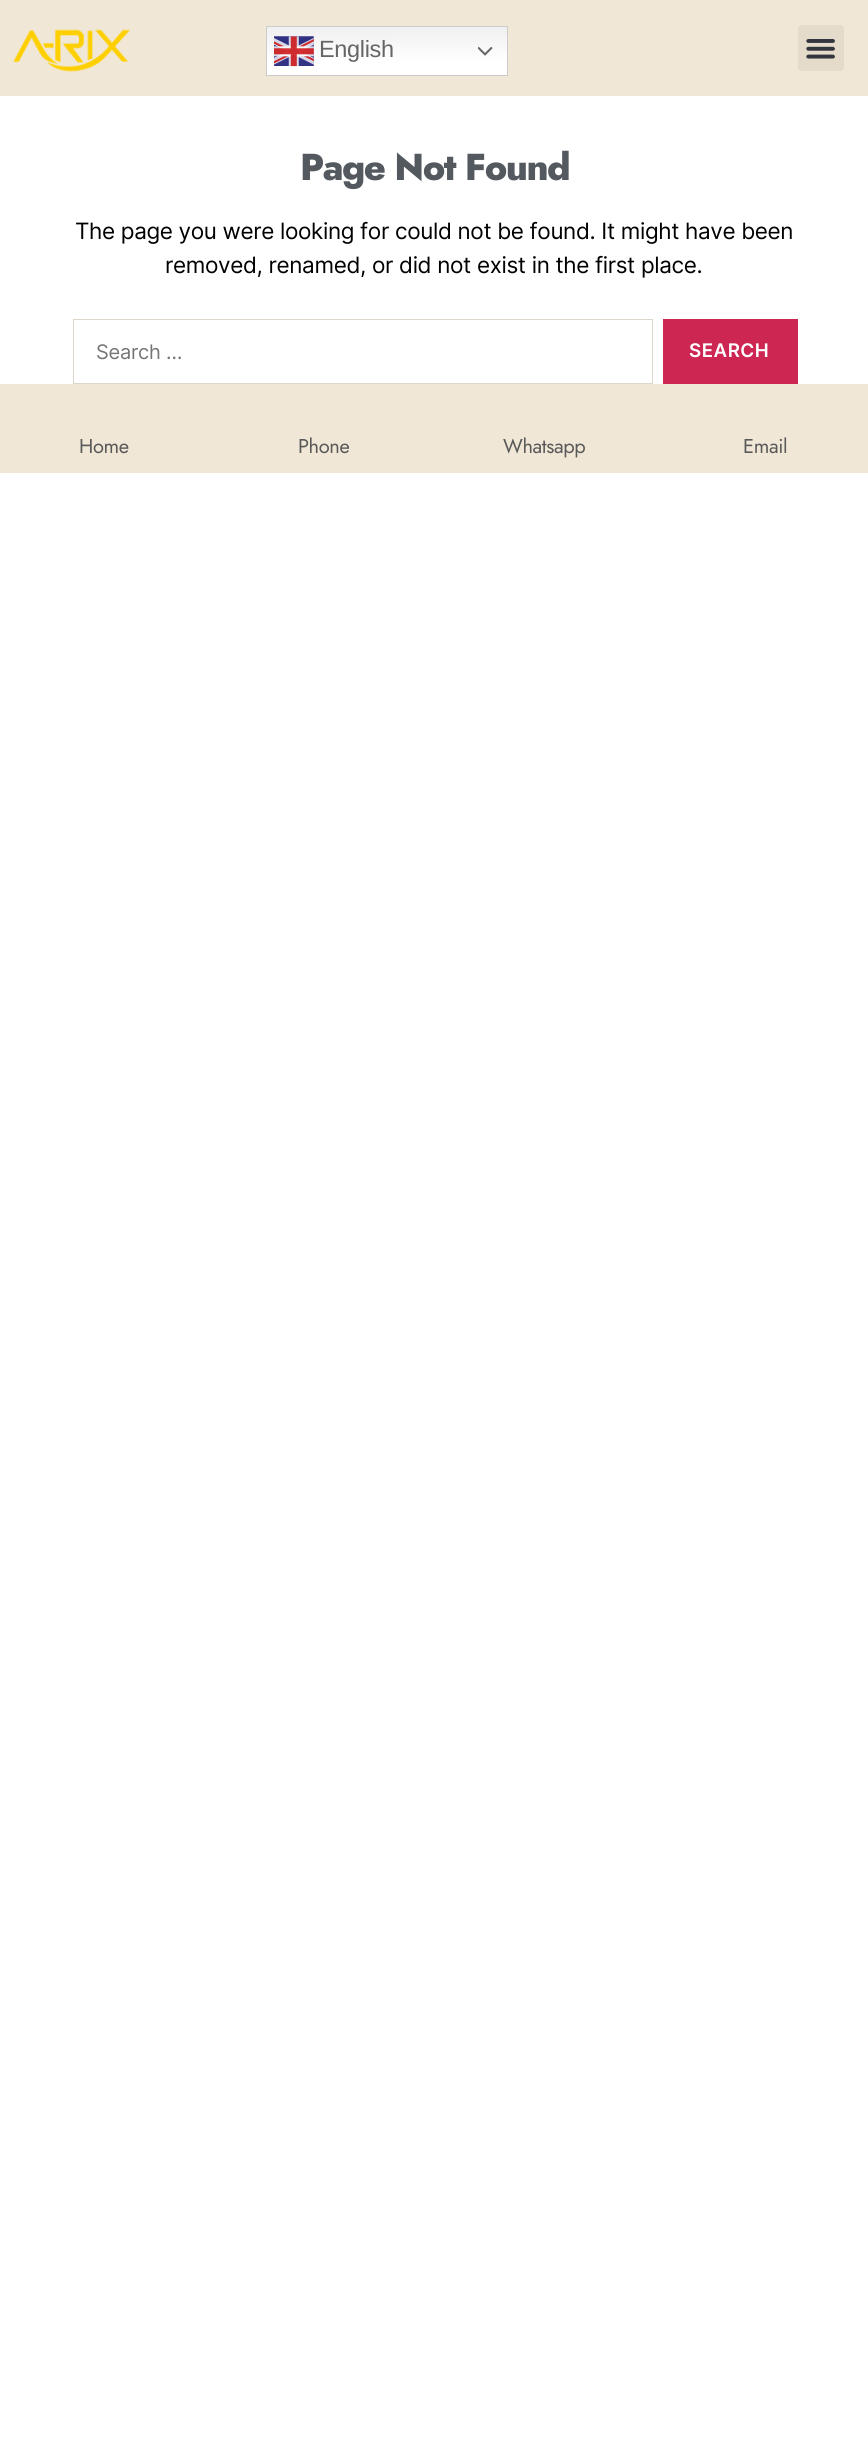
import math
import cairocffi as cairo

surface = cairo.ImageSurface(cairo.FORMAT_RGB24, 868, 2440)
cr = cairo.Context(surface)
options = cairo.FontOptions()
options.set_hint_metrics(cairo.HINT_METRICS_OFF)
options.set_hint_style(cairo.HINT_STYLE_NONE)
cr.set_font_options(options)
cr.set_miter_limit(4)


def use_color(code):
    cr.set_source_rgb(*(v / 255 for v in bytes.fromhex(code[-6:])))


def spaced_text(x, y, s, letter, word):
    cr.move_to(x, y)
    for ch in s:
        cr.show_text(ch)
        cr.rel_move_to(letter + word * (ch == ' '), 0)


def round_rect(x, y, w, h, r):
    cr.new_sub_path()
    for i, (u, v) in enumerate([(x + w - r, y + h - r), (x + r, y + h - r), (x + r, y + r), (x + w - r, y + r)]):
        cr.arc(u, v, r, i * math.pi / 2, (i + 1) * math.pi / 2)
    cr.close_path()


def picture(path, x, y, w, h):
    cr.save()
    cr.set_source_surface(cairo.ImageSurface.create_from_png(path), x, y)
    cr.rectangle(x, y, w, h)
    cr.fill()
    cr.restore()


use_color("#ffffff")
cr.paint()
use_color("#f0e7d6")
cr.rectangle(0, 0, 868, 96)
cr.fill()
picture("img1.png", 13, 29, 118, 43)
gradient = cairo.LinearGradient(387, 26, 387, 76)
gradient.add_color_stop_rgba(0, 0.937, 0.937, 0.937, 1)
gradient.add_color_stop_rgba(0.7, 1, 1, 1, 1)
cr.set_source(gradient)
cr.rectangle(267, 27, 240, 48)
cr.fill()
cr.rectangle(266.5, 26.5, 241, 49)
use_color("#cccccc")
cr.set_line_width(1)
cr.stroke()
picture("img2.png", 274, 36, 40, 31)
cr.select_font_face("Liberation Sans")
cr.set_font_size(23.5)
use_color("#666666")
spaced_text(319, 57, "English", -0.35, 0)
picture("img3.png", 478, 46, 15, 10)
use_color("#e4dbcb")
round_rect(798, 25, 46, 46, 4)
cr.fill()
picture("img4.png", 806, 39, 29, 20)
cr.select_font_face("Jost ExtraBold")
cr.set_font_size(37.5)
use_color("#54595f")
spaced_text(300, 180, "Page Not Found", -1.5, 0)
cr.select_font_face("Inter")
cr.set_font_size(22.5)
use_color("#000000")
spaced_text(75, 239, "The page you were looking for could not be found. It might have been", -0.35, 0)
spaced_text(165, 273, "removed, renamed, or did not exist in the first place.", -0.35, 0)
cr.rectangle(73.5, 319.5, 579, 64)
use_color("#dcd7ca")
cr.stroke()
cr.set_font_size(20)
use_color("#757575")
spaced_text(96, 359, "Search …", -0.25, 0)
use_color("#cd2653")
cr.rectangle(663, 319, 135, 65)
cr.fill()
cr.select_font_face("Inter SemiBold")
cr.set_font_size(18.75)
use_color("#ffffff")
spaced_text(689, 357, "SEARCH", 0.5, 0)
use_color("#f0e7d6")
cr.rectangle(0, 384, 868, 89)
cr.fill()
cr.select_font_face("Jost")
cr.set_font_size(20)
use_color("#595959")
spaced_text(79, 453, "Home", -0.35, 0)
spaced_text(298, 453, "Phone", -0.35, 0)
spaced_text(503, 453, "Whatsapp", -0.35, 0)
spaced_text(743, 453, "Email", -0.35, 0)
surface.write_to_png("result.png")
